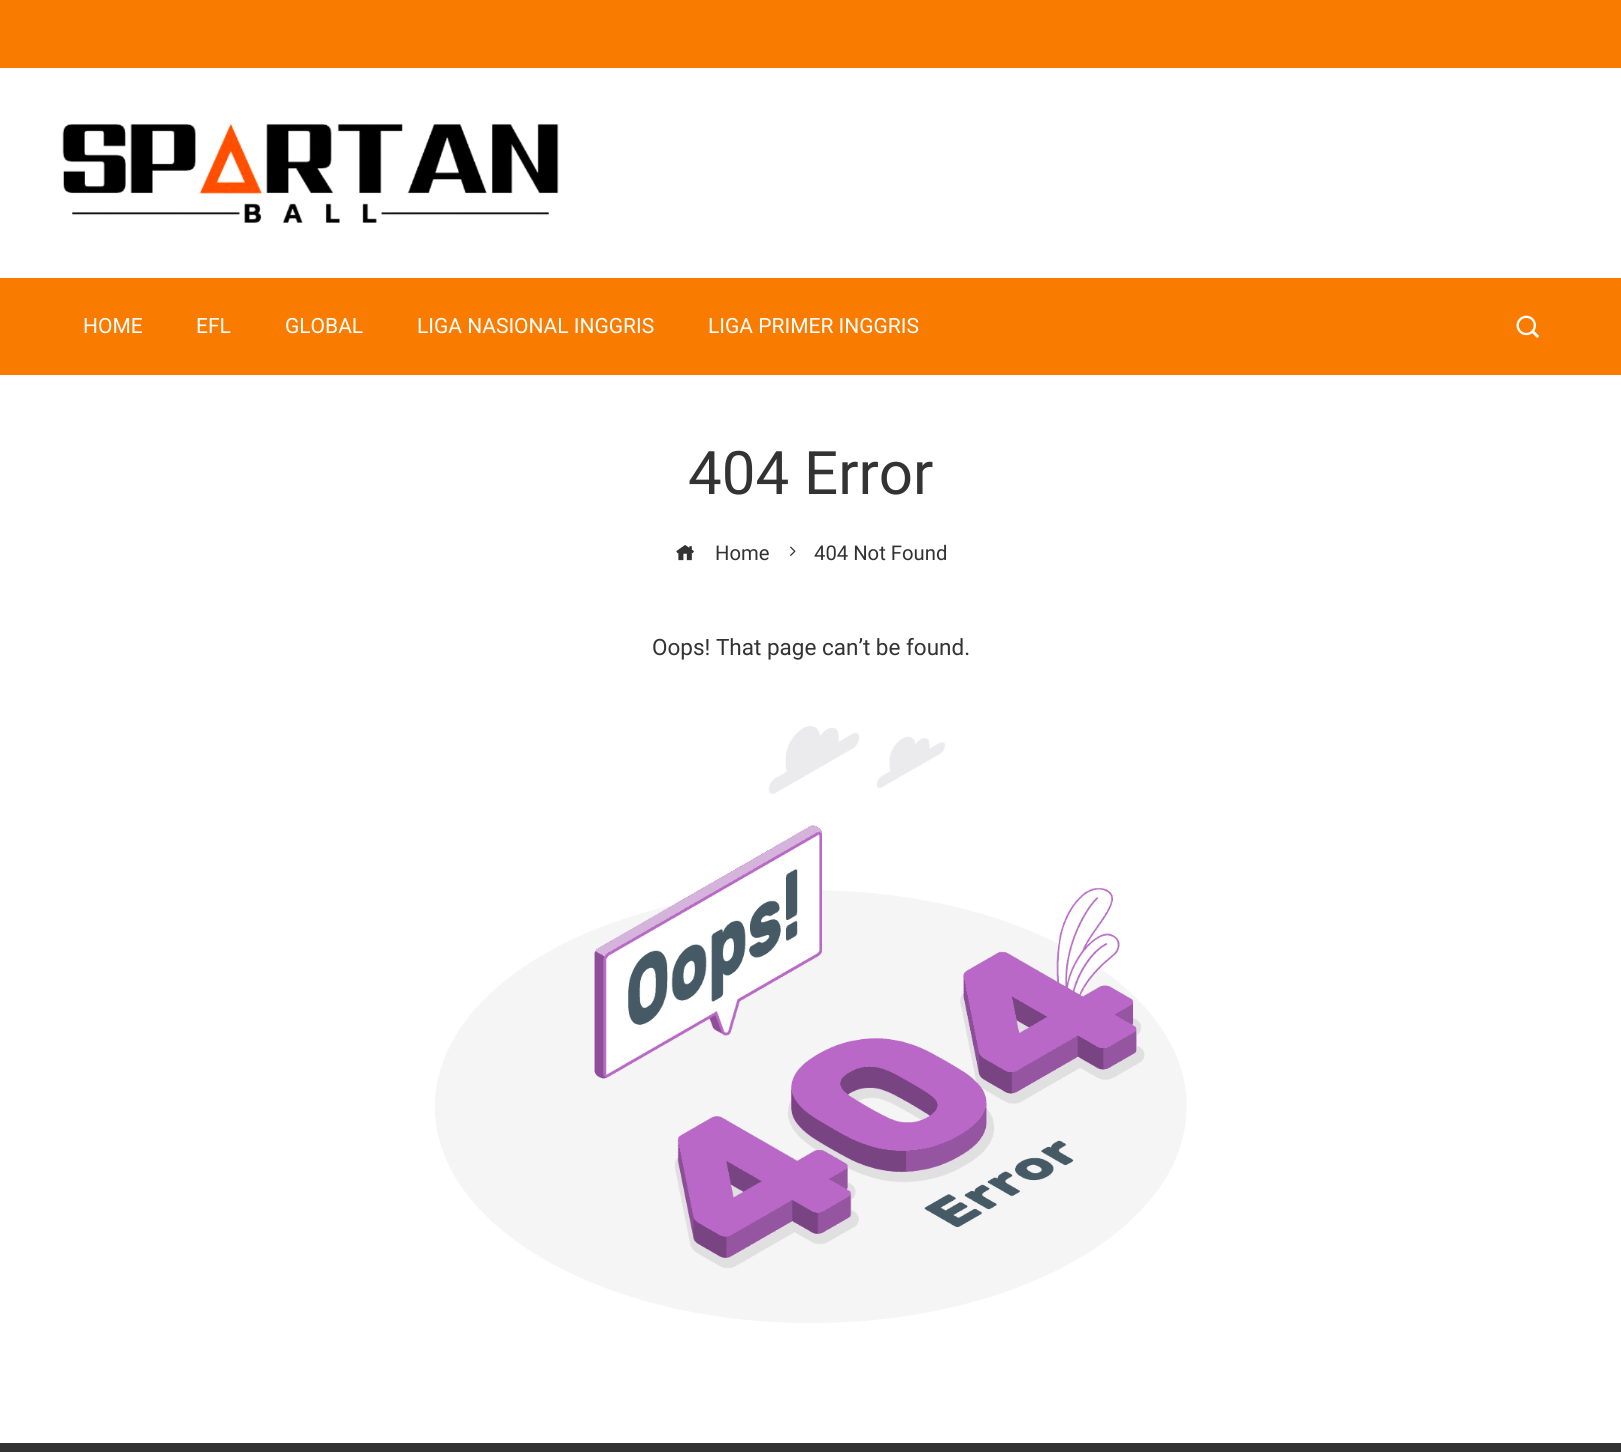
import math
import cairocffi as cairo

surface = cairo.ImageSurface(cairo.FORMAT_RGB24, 1621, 1452)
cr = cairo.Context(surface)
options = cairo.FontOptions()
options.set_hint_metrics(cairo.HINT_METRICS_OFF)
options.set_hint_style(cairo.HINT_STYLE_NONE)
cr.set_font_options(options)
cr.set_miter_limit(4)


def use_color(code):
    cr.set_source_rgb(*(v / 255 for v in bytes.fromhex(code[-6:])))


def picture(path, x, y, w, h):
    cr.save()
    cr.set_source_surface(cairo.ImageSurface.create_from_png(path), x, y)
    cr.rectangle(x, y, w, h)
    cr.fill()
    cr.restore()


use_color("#ffffff")
cr.paint()
use_color("#f97c00")
cr.rectangle(0, 0, 1621, 68)
cr.fill()
picture("img1.png", 62, 123, 497, 100)
cr.rectangle(0, 278, 1621, 97)
cr.fill()
cr.select_font_face("Roboto")
cr.set_font_size(21)
use_color("#ffffff")
cr.move_to(83, 333)
cr.show_text("HOME")
cr.move_to(196, 333)
cr.show_text("EFL")
cr.move_to(285, 333)
cr.show_text("GLOBAL")
cr.move_to(417, 333)
cr.show_text("LIGA NASIONAL INGGRIS")
cr.move_to(708, 333)
cr.show_text("LIGA PRIMER INGGRIS")
picture("img2.png", 1516, 315, 23, 23)
cr.set_font_size(60)
use_color("#333333")
cr.move_to(688, 494)
cr.show_text("404 Error")
picture("img3.png", 676, 545, 18, 16)
cr.set_font_size(20.25)
cr.move_to(715, 560)
cr.show_text("Home")
picture("img4.png", 790, 546, 6, 10)
cr.move_to(814, 560)
cr.show_text("404 Not Found")
cr.set_font_size(22.5)
cr.move_to(652, 655)
cr.show_text("Oops! That page can’t be found.")
picture("img5.png", 435, 726, 752, 597)
cr.rectangle(0, 1443, 1621, 9)
cr.fill()
surface.write_to_png("result.png")
